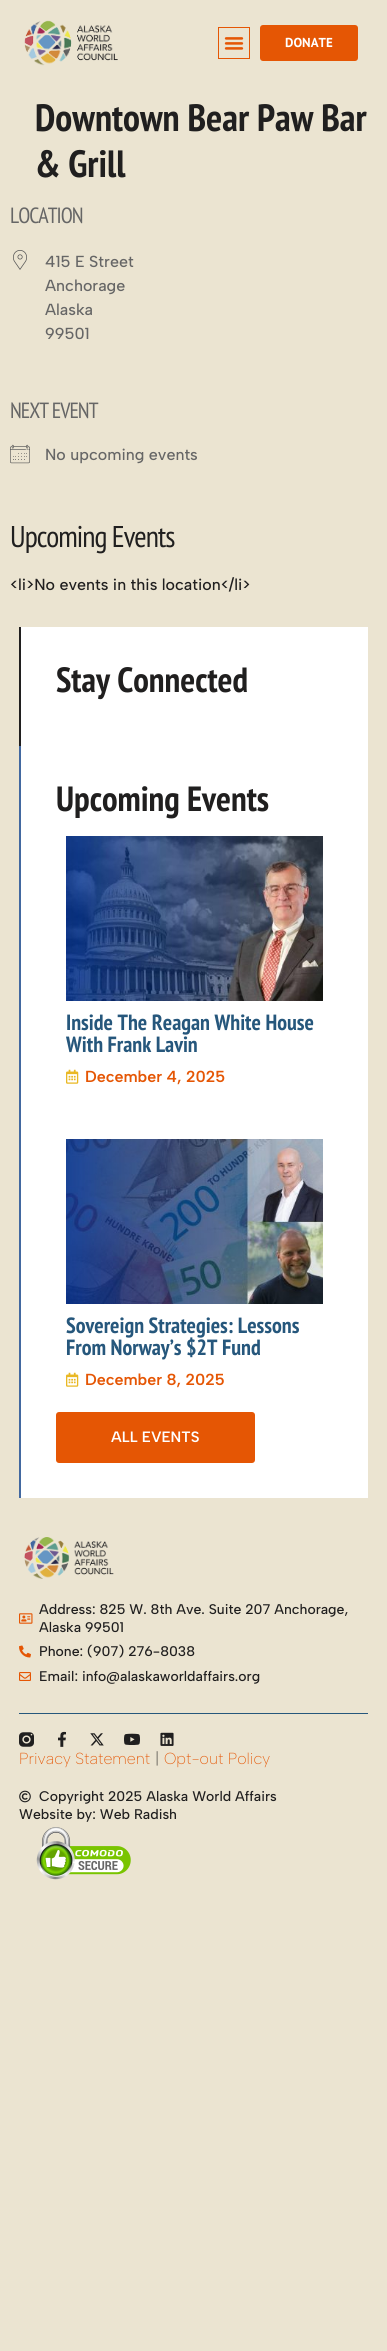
import math
import cairocffi as cairo

surface = cairo.ImageSurface(cairo.FORMAT_RGB24, 387, 2351)
cr = cairo.Context(surface)
options = cairo.FontOptions()
options.set_hint_metrics(cairo.HINT_METRICS_OFF)
options.set_hint_style(cairo.HINT_STYLE_NONE)
cr.set_font_options(options)
cr.set_miter_limit(4)


def use_color(code):
    cr.set_source_rgb(*(v / 255 for v in bytes.fromhex(code[-6:])))


def spaced_text(x, y, s, letter, word):
    cr.move_to(x, y)
    for ch in s:
        cr.show_text(ch)
        cr.rel_move_to(letter + word * (ch == ' '), 0)


def round_rect(x, y, w, h, r):
    cr.new_sub_path()
    for i, (u, v) in enumerate([(x + w - r, y + h - r), (x + r, y + h - r), (x + r, y + r), (x + w - r, y + r)]):
        cr.arc(u, v, r, i * math.pi / 2, (i + 1) * math.pi / 2)
    cr.close_path()


def picture(path, x, y, w, h):
    cr.save()
    cr.set_source_surface(cairo.ImageSurface.create_from_png(path), x, y)
    cr.rectangle(x, y, w, h)
    cr.fill()
    cr.restore()


use_color("#ebe4d1")
cr.paint()
picture("img1.png", 24, 20, 94, 46)
cr.rectangle(218.5, 27.5, 31, 31)
use_color("#e55604")
cr.set_line_width(1)
cr.stroke()
picture("img2.png", 224, 37, 20, 13)
round_rect(260, 25, 98, 36, 3)
cr.fill()
cr.select_font_face("PT Sans", cairo.FONT_SLANT_NORMAL, cairo.FONT_WEIGHT_BOLD)
cr.set_font_size(13)
use_color("#ffffff")
cr.move_to(285, 47)
cr.show_text("DONATE")
cr.select_font_face("PT Sans Narrow", cairo.FONT_SLANT_NORMAL, cairo.FONT_WEIGHT_BOLD)
cr.set_font_size(38)
use_color("#201f1f")
cr.move_to(35, 131)
cr.show_text("Downtown Bear Paw Bar")
cr.move_to(35, 177)
cr.show_text("& Grill")
cr.select_font_face("PT Sans Narrow")
cr.set_font_size(22)
use_color("#666666")
spaced_text(10, 223, "LOCATION", -1, 0)
picture("img3.png", 13, 250, 14, 20)
cr.select_font_face("Albert Sans Medium")
cr.set_font_size(16)
cr.move_to(45, 267)
cr.show_text("415 E Street")
cr.move_to(45, 291)
cr.show_text("Anchorage")
cr.move_to(45, 315)
cr.show_text("Alaska")
cr.move_to(45, 339)
cr.show_text("99501")
cr.select_font_face("PT Sans Narrow")
cr.set_font_size(22)
spaced_text(10, 418, "NEXT EVENT", -1, 0)
picture("img4.png", 10, 444, 20, 20)
cr.select_font_face("Albert Sans Medium")
cr.set_font_size(16)
cr.move_to(45, 460)
cr.show_text("No upcoming events")
cr.select_font_face("PT Sans Narrow")
cr.set_font_size(30)
use_color("#201f1f")
spaced_text(10, 547, "Upcoming Events", -1, 0)
cr.select_font_face("Albert Sans Medium")
cr.set_font_size(16)
cr.move_to(10, 590)
cr.show_text("<li>No events in this location</li>")
use_color("#ffffff")
cr.rectangle(21, 627, 347, 871)
cr.fill()
use_color("#201f1f")
cr.rectangle(19, 627, 2, 119)
cr.fill()
cr.select_font_face("PT Sans Narrow", cairo.FONT_SLANT_NORMAL, cairo.FONT_WEIGHT_BOLD)
cr.set_font_size(35)
cr.move_to(56, 692)
cr.show_text("Stay Connected")
use_color("#4268a0")
cr.rectangle(19, 746, 2, 752)
cr.fill()
use_color("#201f1f")
cr.move_to(56, 811)
cr.show_text("Upcoming Events")
picture("img5.png", 66, 836, 257, 165)
cr.set_font_size(22)
use_color("#26577c")
cr.move_to(66, 1030)
cr.show_text("Inside The Reagan White House")
cr.move_to(66, 1052)
cr.show_text("With Frank Lavin")
picture("img6.png", 66, 1069, 13, 15)
cr.select_font_face("Albert Sans SemiBold")
cr.set_font_size(16)
use_color("#e55604")
cr.move_to(85, 1082)
cr.show_text("December 4, 2025")
picture("img7.png", 66, 1139, 257, 165)
cr.select_font_face("PT Sans Narrow", cairo.FONT_SLANT_NORMAL, cairo.FONT_WEIGHT_BOLD)
cr.set_font_size(22)
use_color("#26577c")
cr.move_to(66, 1333)
cr.show_text("Sovereign Strategies: Lessons")
cr.move_to(66, 1355)
cr.show_text("From Norway’s $2T Fund")
picture("img6.png", 66, 1372, 13, 15)
cr.select_font_face("Albert Sans SemiBold")
cr.set_font_size(16)
use_color("#e55604")
cr.move_to(85, 1385)
cr.show_text("December 8, 2025")
round_rect(56, 1412, 199, 51, 3)
cr.fill()
cr.set_font_size(15)
use_color("#ffffff")
cr.move_to(111, 1442)
cr.show_text("ALL EVENTS")
picture("img8.png", 24, 1537, 90, 42)
use_color("#26577c")
cr.rectangle(19, 1713, 349, 1)
cr.fill()
picture("img9.png", 19, 1613, 14, 11)
cr.select_font_face("Albert Sans Medium")
cr.set_font_size(14)
use_color("#201f1f")
cr.move_to(39, 1614)
cr.show_text("Address: 825 W. 8th Ave. Suite 207 Anchorage,")
cr.move_to(39, 1632)
cr.show_text("Alaska 99501")
picture("img10.png", 19, 1645, 12, 13)
cr.move_to(39, 1656)
cr.show_text("Phone: (907) 276-8038")
picture("img11.png", 19, 1672, 12, 9)
cr.move_to(39, 1681)
cr.show_text("Email: info@alaskaworldaffairs.org")
picture("img12.png", 19, 1732, 15, 15)
picture("img13.png", 58, 1731, 8, 16)
picture("img14.png", 90, 1733, 14, 13)
picture("img15.png", 124, 1733, 16, 12)
picture("img16.png", 160, 1732, 14, 14)
cr.select_font_face("Albert Sans ExtraLight")
cr.set_font_size(16)
use_color("#e55604")
cr.move_to(19, 1764)
cr.show_text("Privacy Statement")
use_color("#201f1f")
cr.move_to(155, 1764)
cr.show_text("|")
use_color("#e55604")
cr.move_to(164, 1764)
cr.show_text("Opt-out Policy")
picture("img17.png", 19, 1790, 12, 13)
cr.select_font_face("Albert Sans Medium")
cr.set_font_size(14)
use_color("#201f1f")
cr.move_to(39, 1801)
cr.show_text("Copyright 2025 Alaska World Affairs")
cr.move_to(19, 1819)
cr.show_text("Website by: Web Radish")
picture("img18.png", 36, 1827, 95, 53)
surface.write_to_png("result.png")
